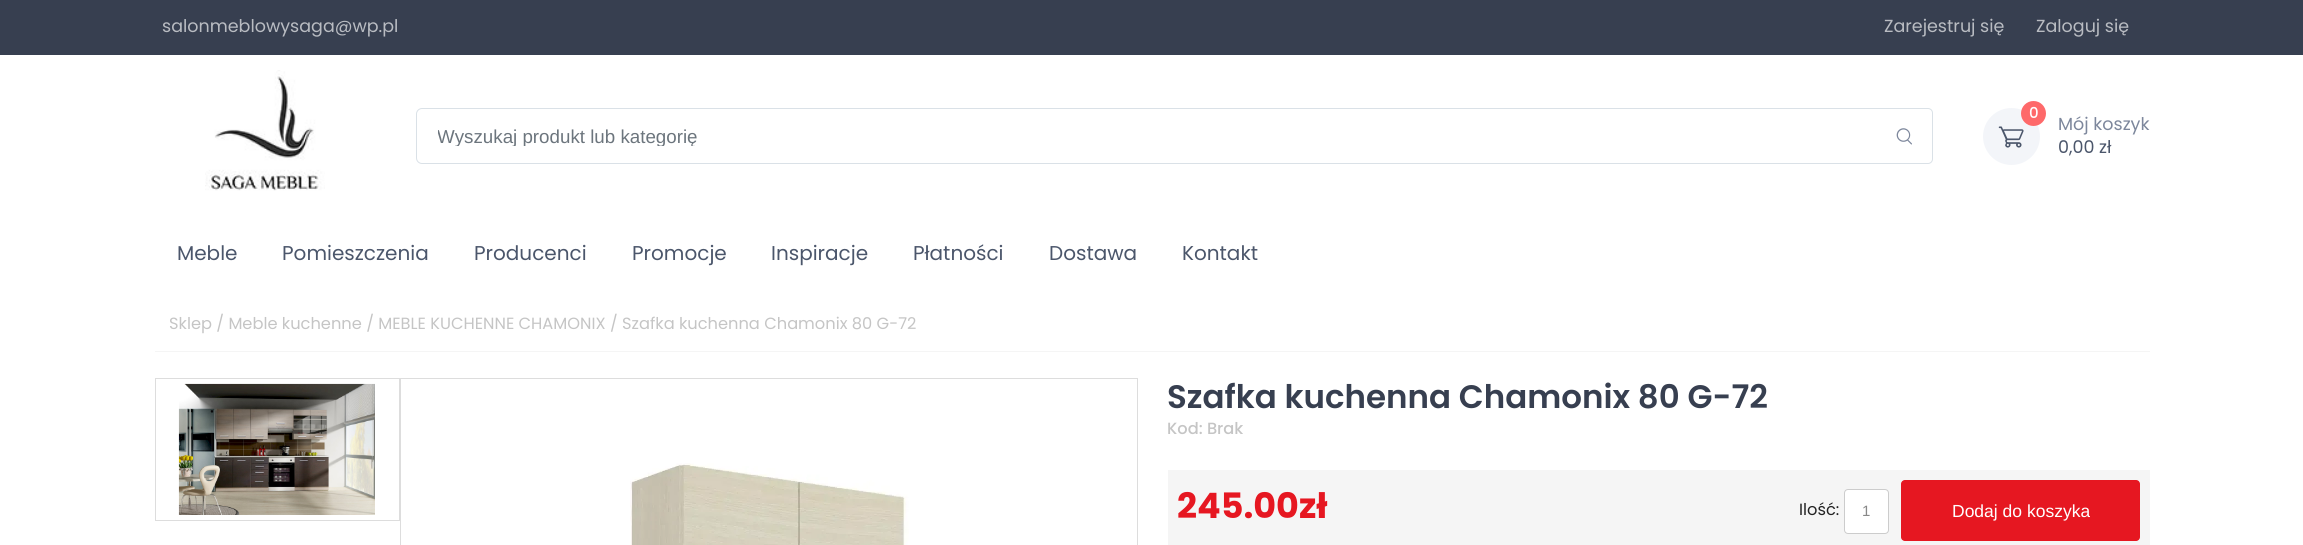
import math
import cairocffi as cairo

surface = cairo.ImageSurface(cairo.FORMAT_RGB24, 2303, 545)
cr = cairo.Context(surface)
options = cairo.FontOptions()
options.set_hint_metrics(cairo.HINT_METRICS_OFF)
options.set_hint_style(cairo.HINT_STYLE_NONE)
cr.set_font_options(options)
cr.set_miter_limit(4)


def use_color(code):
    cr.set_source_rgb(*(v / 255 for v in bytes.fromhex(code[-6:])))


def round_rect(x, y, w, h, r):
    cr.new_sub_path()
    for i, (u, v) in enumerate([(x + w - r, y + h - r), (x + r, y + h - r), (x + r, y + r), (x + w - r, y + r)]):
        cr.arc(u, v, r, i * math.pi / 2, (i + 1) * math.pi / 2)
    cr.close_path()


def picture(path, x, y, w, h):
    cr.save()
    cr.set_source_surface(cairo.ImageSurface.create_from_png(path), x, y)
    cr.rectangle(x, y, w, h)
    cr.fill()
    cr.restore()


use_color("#ffffff")
cr.paint()
use_color("#373f50")
cr.rectangle(0, 0, 2303, 55)
cr.fill()
cr.select_font_face("Poppins")
cr.set_font_size(17.5)
use_color("#b9bcc2")
cr.move_to(162, 32)
cr.show_text("salonmeblowysaga@wp.pl")
cr.move_to(1884, 32)
cr.show_text("Zarejestruj się")
cr.move_to(2036, 32)
cr.show_text("Zaloguj się")
picture("img1.png", 205, 70, 120, 121)
cr.new_path()
cr.move_to(422, 108.5)
cr.line_to(1928, 108.5)
cr.curve_to(1930.5, 108.5, 1932.5, 110.5, 1932.5, 113)
cr.line_to(1932.5, 159)
cr.curve_to(1932.5, 161.5, 1930.5, 163.5, 1928, 163.5)
cr.line_to(422, 163.5)
cr.curve_to(419, 163.5, 416.5, 161, 416.5, 158)
cr.line_to(416.5, 114)
cr.curve_to(416.5, 111, 419, 108.5, 422, 108.5)
cr.close_path()
use_color("#dae1e7")
cr.set_line_width(1)
cr.stroke()
cr.save()
cr.rectangle(438, 125, 1433, 21)
cr.clip()
cr.select_font_face("Liberation Sans")
cr.set_font_size(18.75)
use_color("#6c757d")
cr.move_to(437, 143)
cr.show_text("Wyszukaj produkt lub kategorię")
cr.restore()
picture("img2.png", 1896, 128, 16, 17)
use_color("#f3f5f9")
cr.arc(2011.5, 136.5, 28.5, 0, 2 * math.pi)
cr.fill()
use_color("#fe696a")
cr.arc(2033.5, 113.5, 12.5, 0, 2 * math.pi)
cr.fill()
cr.select_font_face("Poppins Medium")
cr.set_font_size(15)
use_color("#ffffff")
cr.move_to(2029, 118)
cr.show_text("0")
picture("img3.png", 1998, 126, 26, 22)
cr.select_font_face("Poppins")
cr.set_font_size(17.5)
use_color("#7d879c")
cr.move_to(2058, 130)
cr.show_text("Mój koszyk")
use_color("#4b566b")
cr.move_to(2058, 153)
cr.show_text("0,00 zł")
cr.set_font_size(20)
cr.move_to(177, 260)
cr.show_text("Meble")
cr.move_to(282, 260)
cr.show_text("Pomieszczenia")
cr.move_to(474, 260)
cr.show_text("Producenci")
cr.move_to(632, 260)
cr.show_text("Promocje")
cr.move_to(771, 260)
cr.show_text("Inspiracje")
cr.move_to(913, 260)
cr.show_text("Płatności")
cr.move_to(1049, 260)
cr.show_text("Dostawa")
cr.move_to(1182, 260)
cr.show_text("Kontakt")
use_color("#f5f5f5")
cr.rectangle(155, 351, 1995, 1)
cr.fill()
cr.set_font_size(16.25)
use_color("#c5c5c5")
cr.move_to(169, 329)
cr.show_text("Sklep / Meble kuchenne / MEBLE KUCHENNE CHAMONIX / Szafka kuchenna Chamonix 80 G-72")
cr.rectangle(155.5, 378.5, 244, 142)
use_color("#dddddd")
cr.stroke()
picture("img4.png", 178, 383, 197, 132)
cr.rectangle(400.5, 378.5, 737, 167)
cr.stroke()
picture("img5.png", 630, 463, 279, 82)
cr.select_font_face("Poppins SemiBold")
cr.set_font_size(32.5)
use_color("#373f50")
cr.move_to(1167, 408)
cr.show_text("Szafka kuchenna Chamonix 80 G-72")
cr.select_font_face("Poppins Medium")
cr.set_font_size(16.25)
use_color("#c5c5c5")
cr.move_to(1167, 434)
cr.show_text("Kod: Brak")
use_color("#f5f5f5")
cr.rectangle(1168, 470, 982, 75)
cr.fill()
cr.select_font_face("Poppins", cairo.FONT_SLANT_NORMAL, cairo.FONT_WEIGHT_BOLD)
cr.set_font_size(35)
use_color("#e61721")
cr.move_to(1177, 518)
cr.show_text("245.00zł")
cr.select_font_face("Poppins")
cr.set_font_size(16.25)
use_color("#222222")
cr.move_to(1799, 515)
cr.show_text("Ilość:")
use_color("#ffffff")
round_rect(1844.5, 489.5, 44, 44, 3.5)
cr.fill_preserve()
use_color("#cccccc")
cr.stroke()
cr.select_font_face("Liberation Sans")
cr.set_font_size(15)
use_color("#888888")
cr.move_to(1862, 516)
cr.show_text("1")
use_color("#e61721")
round_rect(1901, 480, 239, 61, 4)
cr.fill()
cr.set_font_size(17.5)
use_color("#ffffff")
cr.move_to(1952, 517)
cr.show_text("Dodaj do koszyka")
surface.write_to_png("result.png")
